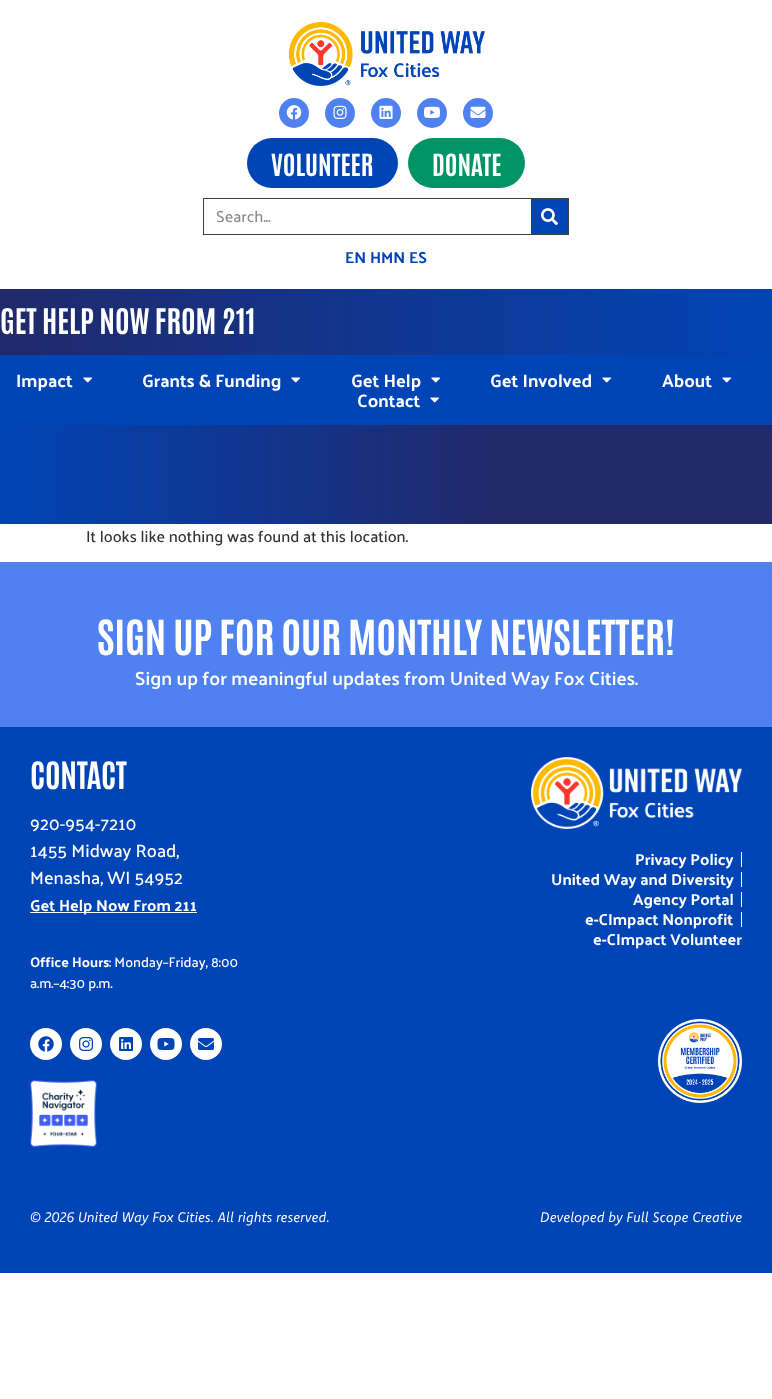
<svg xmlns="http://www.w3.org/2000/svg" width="772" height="1399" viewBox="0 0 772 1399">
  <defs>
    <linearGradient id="g1" gradientUnits="userSpaceOnUse" x1="0" y1="322" x2="772" y2="322"><stop offset="0" stop-color="rgb(33,41,107)"/><stop offset="1" stop-color="rgb(0,68,181)"/></linearGradient>
    <linearGradient id="g2" gradientUnits="userSpaceOnUse" x1="0" y1="475" x2="772" y2="475"><stop offset="0" stop-color="rgb(0,68,181)"/><stop offset="0.63" stop-color="rgb(33,41,107)"/></linearGradient>
  </defs>
  <rect width="100%" height="100%" fill="rgb(255,255,255)"/>
  <image x="288" y="21" width="197" height="65" href="pic1.png"/>
  <circle cx="294" cy="113" r="15" fill="rgb(79,130,240)"/>
  <image x="286" y="105" width="16" height="15" href="pic2.png"/>
  <circle cx="340" cy="113" r="15" fill="rgb(79,130,240)"/>
  <image x="333" y="105" width="14" height="14" href="pic3.png"/>
  <circle cx="386" cy="113" r="15" fill="rgb(79,130,240)"/>
  <image x="379" y="105" width="14" height="14" href="pic4.png"/>
  <circle cx="432" cy="113" r="15" fill="rgb(79,130,240)"/>
  <image x="424" y="106" width="16" height="12" href="pic5.png"/>
  <circle cx="478" cy="113" r="15" fill="rgb(79,130,240)"/>
  <image x="470" y="106" width="16" height="12" href="pic6.png"/>
  <rect x="247" y="138" width="151" height="50" rx="25" fill="rgb(0,68,181)"/>
  <text x="271" y="176" font-family="Antonio" font-size="26" font-weight="bold" fill="rgb(255,255,255)">VOLUNTEER</text>
  <rect x="408" y="138" width="117" height="50" rx="25" fill="rgb(0,148,100)"/>
  <text x="432" y="176" font-family="Antonio" font-size="26" font-weight="bold" fill="rgb(255,255,255)">DONATE</text>
  <rect x="203.5" y="198.5" width="365" height="36" fill="none" stroke="rgb(64,64,65)"/>
  <text x="216" y="222" font-family="Palanquin" font-size="16" font-weight="500" fill="rgb(140,140,141)">Search...</text>
  <rect x="531" y="199" width="37" height="35" fill="rgb(0,68,181)"/>
  <image x="541" y="208" width="17" height="18" href="pic7.png"/>
  <text x="345" y="263" font-family="Palanquin" font-size="16" font-weight="bold" fill="rgb(0,68,181)">EN HMN ES</text>
  <rect x="0" y="355" width="772" height="70" fill="rgb(0,68,181)"/>
  <rect x="0" y="289" width="772" height="66" fill="url(#g1)"/>
  <text x="0" y="334" font-family="Antonio" font-size="30" font-weight="bold" fill="rgb(255,255,255)">GET HELP NOW FROM 211</text>
  <text x="16" y="387" font-family="Palanquin" font-size="18" font-weight="bold" fill="rgb(255,255,255)">Impact</text>
  <image x="83" y="377" width="9" height="6" href="pic8.png"/>
  <text x="142" y="387" font-family="Palanquin" font-size="18" font-weight="bold" fill="rgb(255,255,255)">Grants &amp; Funding</text>
  <image x="291" y="377" width="9" height="6" href="pic8.png"/>
  <text x="351" y="387" font-family="Palanquin" font-size="18" font-weight="bold" fill="rgb(255,255,255)">Get Help</text>
  <image x="431" y="377" width="9" height="6" href="pic8.png"/>
  <text x="490" y="387" font-family="Palanquin" font-size="18" font-weight="bold" fill="rgb(255,255,255)">Get Involved</text>
  <image x="602" y="377" width="9" height="6" href="pic8.png"/>
  <text x="662" y="387" font-family="Palanquin" font-size="18" font-weight="bold" fill="rgb(255,255,255)">About</text>
  <image x="722" y="377" width="9" height="6" href="pic8.png"/>
  <text x="357" y="407" font-family="Palanquin" font-size="18" font-weight="bold" fill="rgb(255,255,255)">Contact</text>
  <image x="430" y="397" width="9" height="6" href="pic8.png"/>
  <rect x="0" y="425" width="772" height="99" fill="url(#g2)"/>
  <text x="86" y="542" font-family="Palanquin" font-size="16" font-weight="500" fill="rgb(51,51,51)">It looks like nothing was found at this location.</text>
  <rect x="0" y="562" width="772" height="165" fill="rgb(79,130,240)"/>
  <text x="97" y="655" font-family="Antonio" font-size="41" font-weight="bold" letter-spacing="-0.2" fill="rgb(255,255,255)">SIGN UP FOR OUR MONTHLY NEWSLETTER!</text>
  <text x="135" y="685" font-family="Palanquin" font-size="19" font-weight="600" fill="rgb(255,255,255)">Sign up for meaningful updates from United Way Fox Cities.</text>
  <rect x="0" y="727" width="772" height="546" fill="rgb(0,68,181)"/>
  <text x="30" y="789" font-family="Antonio" font-size="32" font-weight="bold" letter-spacing="-0.25" fill="rgb(255,255,255)">CONTACT</text>
  <g font-family="Palanquin" font-size="18" font-weight="500" fill="rgb(255,255,255)">
    <text>
      <tspan x="30" y="830">920-954-7210</tspan>
      <tspan x="30" y="857">1455 Midway Road,</tspan>
      <tspan x="30" y="884">Menasha, WI 54952</tspan>
    </text>
  </g>
  <rect x="30" y="912" width="167" height="1" fill="rgb(255,255,255)"/>
  <text x="30" y="911" font-family="Palanquin" font-size="16" font-weight="bold" fill="rgb(255,255,255)">Get Help Now From 211</text>
  <text x="30" y="967" font-family="Palanquin" font-size="14" font-weight="bold" fill="rgb(255,255,255)">Office Hours</text>
  <g font-family="Palanquin" font-size="14" font-weight="500" fill="rgb(255,255,255)">
    <text x="109" y="967">: Monday–Friday, 8:00</text>
    <text x="30" y="988">a.m.–4:30 p.m.</text>
  </g>
  <circle cx="46" cy="1044" r="16" fill="rgb(255,255,255)"/>
  <image x="38" y="1036" width="16" height="16" href="pic9.png"/>
  <circle cx="86" cy="1044" r="16" fill="rgb(255,255,255)"/>
  <image x="79" y="1037" width="14" height="14" href="pic10.png"/>
  <circle cx="126" cy="1044" r="16" fill="rgb(255,255,255)"/>
  <image x="119" y="1037" width="14" height="14" href="pic11.png"/>
  <circle cx="166" cy="1044" r="16" fill="rgb(255,255,255)"/>
  <image x="157" y="1038" width="18" height="12" href="pic12.png"/>
  <circle cx="206" cy="1044" r="16" fill="rgb(255,255,255)"/>
  <image x="198" y="1038" width="16" height="12" href="pic13.png"/>
  <image x="30" y="1080" width="67" height="67" href="pic14.png"/>
  <image x="531" y="757" width="211" height="72" href="pic15.png"/>
  <text x="635" y="865" font-family="Palanquin" font-size="16" font-weight="bold" fill="rgb(255,255,255)">Privacy Policy</text>
  <rect x="741" y="852" width="1" height="15" fill="rgb(255,255,255)"/>
  <text x="551" y="885" font-family="Palanquin" font-size="16" font-weight="bold" fill="rgb(255,255,255)">United Way and Diversity</text>
  <rect x="741" y="872" width="1" height="15" fill="rgb(255,255,255)"/>
  <text x="633" y="905" font-family="Palanquin" font-size="16" font-weight="bold" fill="rgb(255,255,255)">Agency Portal</text>
  <rect x="741" y="892" width="1" height="15" fill="rgb(255,255,255)"/>
  <text x="585" y="925" font-family="Palanquin" font-size="16" font-weight="bold" fill="rgb(255,255,255)">e-CImpact Nonprofit</text>
  <rect x="741" y="912" width="1" height="15" fill="rgb(255,255,255)"/>
  <text x="593" y="945" font-family="Palanquin" font-size="16" font-weight="bold" fill="rgb(255,255,255)">e-CImpact Volunteer</text>
  <image x="658" y="1019" width="84" height="84" href="pic16.png"/>
  <g font-family="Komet" font-size="14" font-style="italic" fill="rgb(255,255,255)">
    <text x="30" y="1222">© 2026 United Way Fox Cities. All rights reserved.</text>
    <text x="540" y="1222">Developed by Full Scope Creative</text>
  </g>
</svg>
